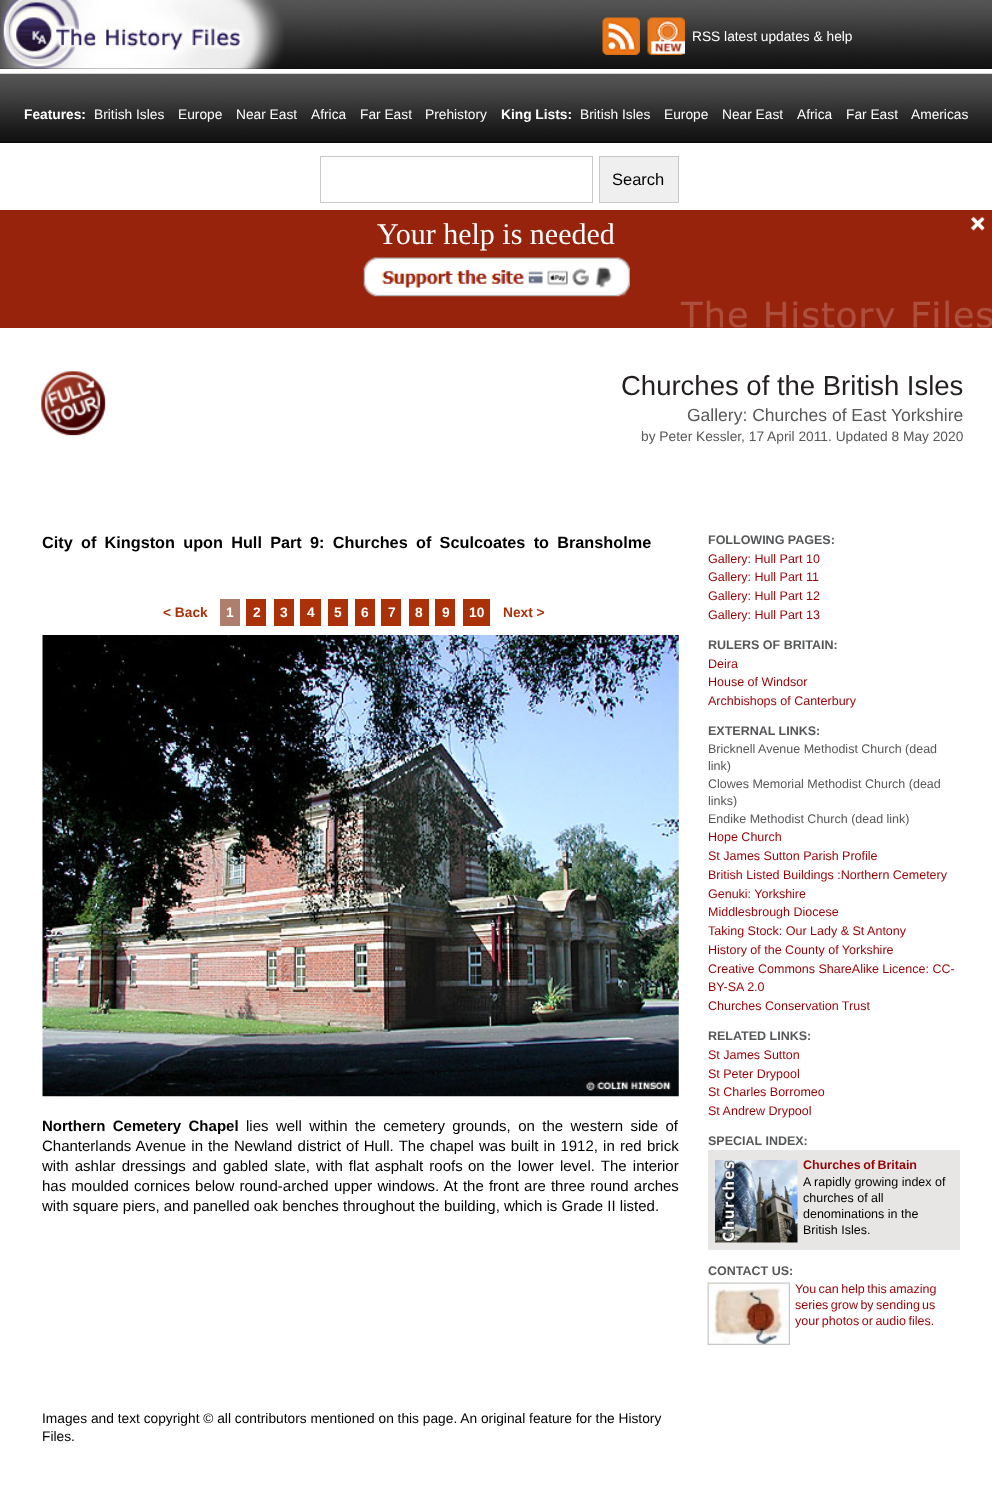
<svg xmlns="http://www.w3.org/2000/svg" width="992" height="1490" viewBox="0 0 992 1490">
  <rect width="100%" height="100%" fill="rgb(255,255,255)"/>
  <rect x="0" y="68" width="992" height="75" fill="rgb(0,0,0)"/>
  <image x="0" y="0" width="992" height="69" href="pic1.png"/>
  <image x="0" y="0" width="284" height="69" href="pic2.png"/>
  <image x="602" y="17" width="38" height="38" href="pic3.png"/>
  <image x="647" y="17" width="38" height="38" href="pic4.png"/>
  <text x="692" y="41" font-family="Liberation Sans" font-size="13.75" fill="rgb(255,255,255)">RSS latest updates &amp; help</text>
  <rect x="0" y="69" width="992" height="5" fill="rgb(255,255,255)"/>
  <image x="0" y="73" width="992" height="70" href="pic5.png"/>
  <text x="24" y="119" font-family="Liberation Sans" font-size="13.75" font-weight="bold" fill="rgb(255,255,255)">Features:</text>
  <g font-family="Liberation Sans" font-size="13.75" fill="rgb(255,255,255)">
    <text x="94" y="119">British Isles</text>
    <text x="178" y="119">Europe</text>
    <text x="236" y="119">Near East</text>
    <text x="311" y="119">Africa</text>
    <text x="360" y="119">Far East</text>
    <text x="425" y="119">Prehistory</text>
  </g>
  <text x="501" y="119" font-family="Liberation Sans" font-size="13.75" font-weight="bold" fill="rgb(255,255,255)">King Lists:</text>
  <g font-family="Liberation Sans" font-size="13.75" fill="rgb(255,255,255)">
    <text x="580" y="119">British Isles</text>
    <text x="664" y="119">Europe</text>
    <text x="722" y="119">Near East</text>
    <text x="797" y="119">Africa</text>
    <text x="846" y="119">Far East</text>
    <text x="911" y="119">Americas</text>
  </g>
  <rect x="320.5" y="156.5" width="272" height="46" fill="none" stroke="rgb(200,200,200)"/>
  <rect x="599.5" y="156.5" width="79" height="46" fill="rgb(239,239,239)" stroke="rgb(200,200,200)"/>
  <text x="612" y="185" font-family="Liberation Sans" font-size="16.5" fill="rgb(0,0,0)">Search</text>
  <rect x="0" y="210" width="992" height="118" fill="rgb(152,35,12)"/>
  <image x="680" y="300" width="312" height="28" href="pic6.png"/>
  <text x="377" y="244" font-family="Liberation Serif" font-size="30" fill="rgb(255,255,255)">Your help is needed</text>
  <image x="363" y="257" width="267" height="40" href="pic7.png"/>
  <image x="970" y="216" width="15" height="15" href="pic8.png"/>
  <image x="41" y="371" width="65" height="65" href="pic9.png"/>
  <text x="621" y="395" font-family="Liberation Sans" font-size="27.5" fill="rgb(35,31,32)">Churches of the British Isles</text>
  <text x="687" y="421" font-family="Liberation Sans" font-size="17.5" fill="rgb(86,87,89)">Gallery: Churches of East Yorkshire</text>
  <text x="641" y="441" font-family="Liberation Sans" font-size="13.75" fill="rgb(86,87,89)">by Peter Kessler, 17 April 2011. Updated 8 May 2020</text>
  <g font-family="Liberation Sans" font-size="16.25" font-weight="bold" fill="rgb(0,0,0)">
    <text x="42" y="548" word-spacing="3.75">City of Kingston upon Hull Part 9: Churches</text>
    <text x="416" y="548" word-spacing="3.75">of Sculcoates to Bransholme</text>
  </g>
  <text x="163" y="617" font-family="Liberation Sans" font-size="13.75" font-weight="bold" fill="rgb(171,49,8)">&lt; Back</text>
  <rect x="220" y="599" width="20" height="27" fill="rgb(175,126,109)"/>
  <text x="226" y="617" font-family="Liberation Sans" font-size="13.75" font-weight="bold" fill="rgb(255,255,255)">1</text>
  <rect x="246" y="599" width="20" height="27" fill="rgb(171,49,8)"/>
  <text x="253" y="617" font-family="Liberation Sans" font-size="13.75" font-weight="bold" fill="rgb(255,255,255)">2</text>
  <rect x="274" y="599" width="20" height="27" fill="rgb(171,49,8)"/>
  <text x="280" y="617" font-family="Liberation Sans" font-size="13.75" font-weight="bold" fill="rgb(255,255,255)">3</text>
  <rect x="300" y="599" width="21" height="27" fill="rgb(171,49,8)"/>
  <text x="307" y="617" font-family="Liberation Sans" font-size="13.75" font-weight="bold" fill="rgb(255,255,255)">4</text>
  <rect x="328" y="599" width="20" height="27" fill="rgb(171,49,8)"/>
  <text x="334" y="617" font-family="Liberation Sans" font-size="13.75" font-weight="bold" fill="rgb(255,255,255)">5</text>
  <rect x="355" y="599" width="20" height="27" fill="rgb(171,49,8)"/>
  <text x="361" y="617" font-family="Liberation Sans" font-size="13.75" font-weight="bold" fill="rgb(255,255,255)">6</text>
  <rect x="381" y="599" width="20" height="27" fill="rgb(171,49,8)"/>
  <text x="388" y="617" font-family="Liberation Sans" font-size="13.75" font-weight="bold" fill="rgb(255,255,255)">7</text>
  <rect x="409" y="599" width="20" height="27" fill="rgb(171,49,8)"/>
  <text x="415" y="617" font-family="Liberation Sans" font-size="13.75" font-weight="bold" fill="rgb(255,255,255)">8</text>
  <rect x="435" y="599" width="20" height="27" fill="rgb(171,49,8)"/>
  <text x="442" y="617" font-family="Liberation Sans" font-size="13.75" font-weight="bold" fill="rgb(255,255,255)">9</text>
  <rect x="463" y="599" width="27" height="27" fill="rgb(171,49,8)"/>
  <text x="469" y="617" font-family="Liberation Sans" font-size="13.75" font-weight="bold" fill="rgb(255,255,255)">10</text>
  <text x="503" y="617" font-family="Liberation Sans" font-size="13.75" font-weight="bold" fill="rgb(171,49,8)">Next &gt;</text>
  <image x="42" y="635" width="637" height="462" href="pic10.png"/>
  <text x="42" y="1131" word-spacing="3.25" font-family="Liberation Sans" font-size="15" font-weight="bold" fill="rgb(0,0,0)">Northern Cemetery Chapel</text>
  <g font-family="Liberation Sans" font-size="15" fill="rgb(0,0,0)">
    <text x="246" y="1131" word-spacing="3.25">lies well within</text>
    <text x="355" y="1131" word-spacing="3.25">the cemetery grounds, on the western side of</text>
    <text x="42" y="1151" word-spacing="1">Chanterlands Avenue in</text>
    <text x="208" y="1151" word-spacing="1">the Newland district of Hull. The chapel was built in 1912, in red</text>
    <text x="647" y="1151">brick</text>
    <text x="42" y="1171" word-spacing="1.9">with ashlar dressings and gabled slate, with flat asphalt roofs</text>
    <text x="468" y="1171" word-spacing="2">on the lower level. The interior</text>
    <text x="42" y="1191" word-spacing="1">has moulded cornices below round-arched</text>
    <text x="334" y="1191" word-spacing="1">upper windows. At the front are three round arches</text>
    <text x="42" y="1211">with square piers, and panelled oak benches throughout the building, which is Grade II listed.</text>
  </g>
  <text x="708" y="544" font-family="Liberation Sans" font-size="12.5" font-weight="bold" fill="rgb(86,87,89)">FOLLOWING PAGES:</text>
  <g font-family="Liberation Sans" font-size="12.5" fill="rgb(150,3,7)">
    <text>
      <tspan x="708" y="563">Gallery: Hull Part 10</tspan>
      <tspan x="708" y="581">Gallery: Hull Part 11</tspan>
      <tspan x="708" y="600">Gallery: Hull Part 12</tspan>
      <tspan x="708" y="619">Gallery: Hull Part 13</tspan>
    </text>
  </g>
  <text x="708" y="649" font-family="Liberation Sans" font-size="12.5" font-weight="bold" fill="rgb(86,87,89)">RULERS OF BRITAIN:</text>
  <g font-family="Liberation Sans" font-size="12.5" fill="rgb(150,3,7)">
    <text>
      <tspan x="708" y="668">Deira</tspan>
      <tspan x="708" y="686">House of Windsor</tspan>
      <tspan x="708" y="705">Archbishops of Canterbury</tspan>
    </text>
  </g>
  <text x="708" y="735" font-family="Liberation Sans" font-size="12.5" font-weight="bold" fill="rgb(86,87,89)">EXTERNAL LINKS:</text>
  <g font-family="Liberation Sans" font-size="12.5" fill="rgb(86,87,89)">
    <text>
      <tspan x="708" y="753">Bricknell Avenue Methodist Church (dead</tspan>
      <tspan x="708" y="770">link)</tspan>
      <tspan x="708" y="788">Clowes Memorial Methodist Church (dead</tspan>
      <tspan x="708" y="805">links)</tspan>
      <tspan x="708" y="823">Endike Methodist Church (dead link)</tspan>
    </text>
  </g>
  <g font-family="Liberation Sans" font-size="12.5" fill="rgb(150,3,7)">
    <text>
      <tspan x="708" y="841">Hope Church</tspan>
      <tspan x="708" y="860">St James Sutton Parish Profile</tspan>
      <tspan x="708" y="879">British Listed Buildings :Northern Cemetery</tspan>
      <tspan x="708" y="898">Genuki: Yorkshire</tspan>
      <tspan x="708" y="916">Middlesbrough Diocese</tspan>
      <tspan x="708" y="935">Taking Stock: Our Lady &amp; St Antony</tspan>
      <tspan x="708" y="954">History of the County of Yorkshire</tspan>
      <tspan x="708" y="973">Creative Commons ShareAlike Licence: CC-</tspan>
      <tspan x="708" y="991">BY-SA 2.0</tspan>
      <tspan x="708" y="1010">Churches Conservation Trust</tspan>
    </text>
  </g>
  <text x="708" y="1040" font-family="Liberation Sans" font-size="12.5" font-weight="bold" fill="rgb(86,87,89)">RELATED LINKS:</text>
  <g font-family="Liberation Sans" font-size="12.5" fill="rgb(150,3,7)">
    <text>
      <tspan x="708" y="1059">St James Sutton</tspan>
      <tspan x="708" y="1078">St Peter Drypool</tspan>
      <tspan x="708" y="1096">St Charles Borromeo</tspan>
      <tspan x="708" y="1115">St Andrew Drypool</tspan>
    </text>
  </g>
  <text x="708" y="1145" font-family="Liberation Sans" font-size="12.5" font-weight="bold" fill="rgb(86,87,89)">SPECIAL INDEX:</text>
  <rect x="708" y="1150" width="252" height="100" fill="rgb(231,230,229)"/>
  <image x="715" y="1160" width="83" height="83" href="pic11.png"/>
  <text x="803" y="1169" word-spacing="-1" font-family="Liberation Sans" font-size="12.5" font-weight="bold" fill="rgb(150,3,7)">Churches of Britain</text>
  <g font-family="Liberation Sans" font-size="12.5" fill="rgb(0,0,0)">
    <text>
      <tspan x="803" y="1186">A rapidly growing index of</tspan>
      <tspan x="803" y="1202">churches of all</tspan>
      <tspan x="803" y="1218">denominations in the</tspan>
      <tspan x="803" y="1234">British Isles.</tspan>
    </text>
  </g>
  <text x="708" y="1275" font-family="Liberation Sans" font-size="12.5" font-weight="bold" fill="rgb(86,87,89)">CONTACT US:</text>
  <image x="707" y="1282" width="83" height="63" href="pic12.png"/>
  <g font-family="Liberation Sans" font-size="12.5" fill="rgb(150,3,7)">
    <text>
      <tspan x="795" y="1293" word-spacing="-1">You can help this amazing</tspan>
      <tspan x="795" y="1309" word-spacing="-1">series grow by sending</tspan>
    </text>
    <text x="922" y="1309">us</text>
    <text x="795" y="1325" word-spacing="-1">your photos or audio files.</text>
  </g>
  <g font-family="Liberation Sans" font-size="13.75" fill="rgb(0,0,0)">
    <text>
      <tspan x="42" y="1423">Images and text copyright © all contributors mentioned on this page. An original feature for the History</tspan>
      <tspan x="42" y="1441">Files.</tspan>
    </text>
  </g>
</svg>
